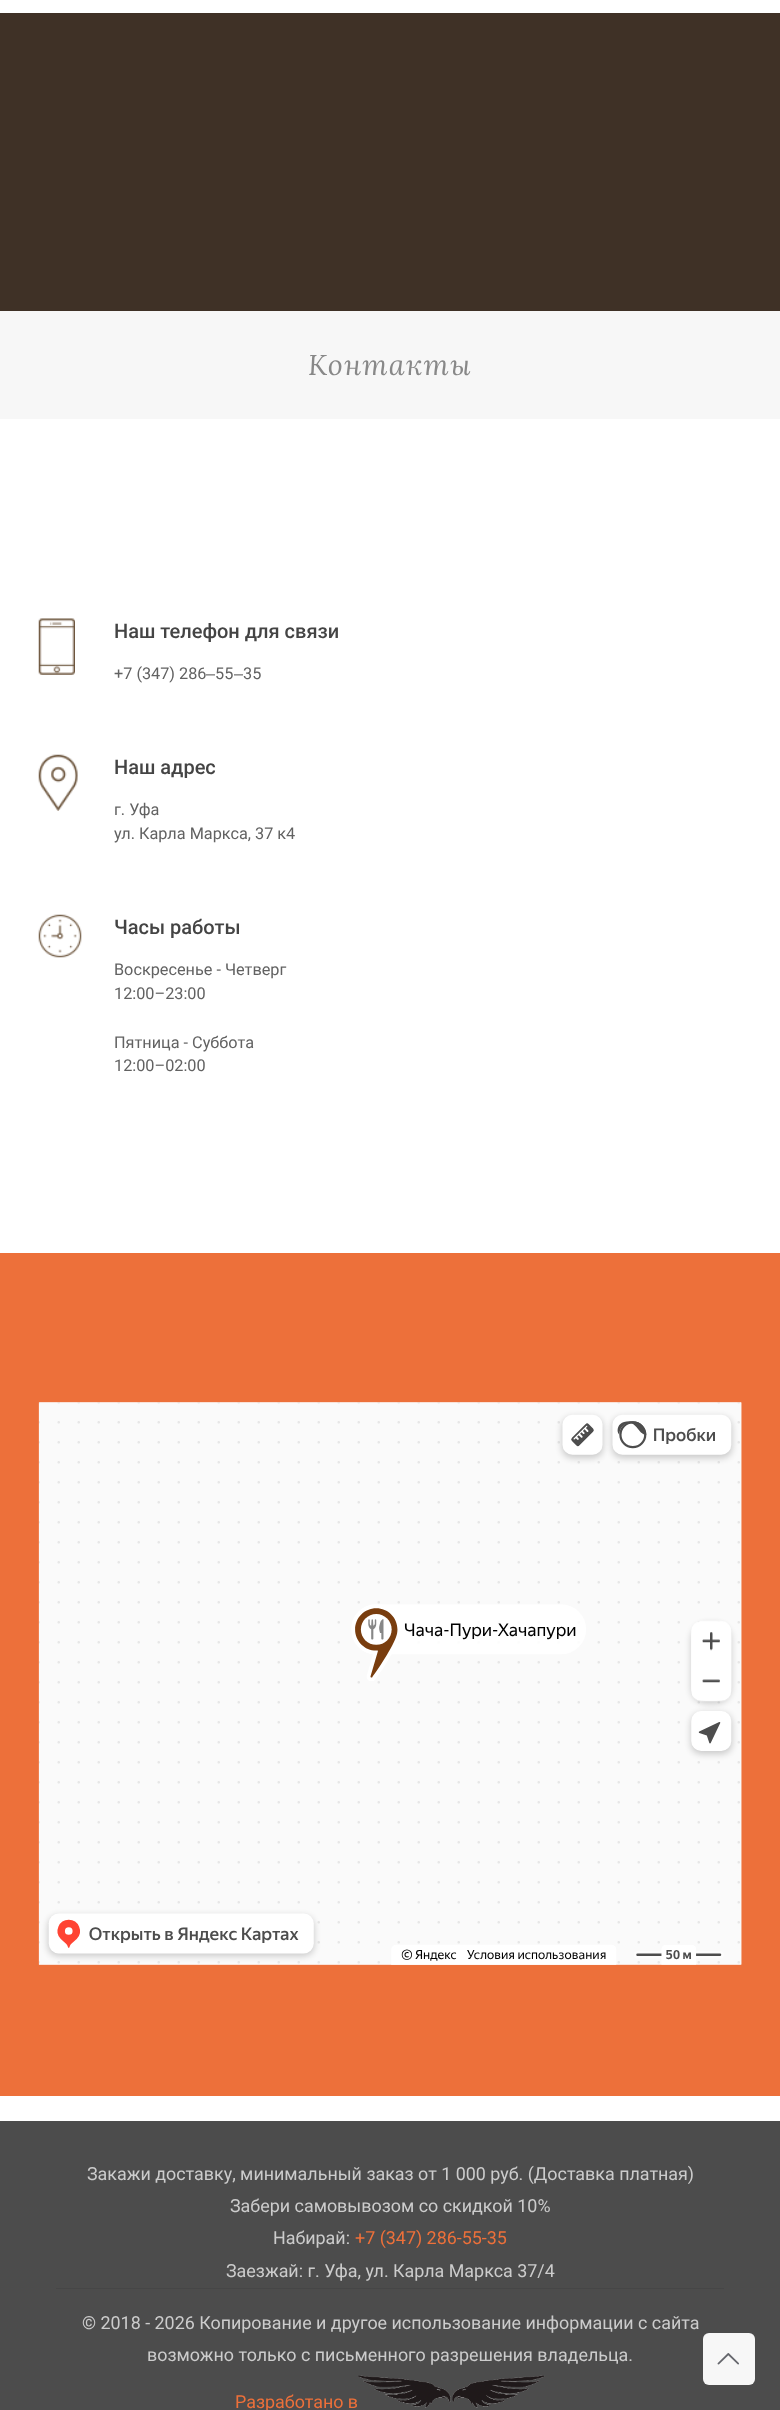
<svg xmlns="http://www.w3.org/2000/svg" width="780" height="2410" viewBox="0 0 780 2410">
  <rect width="100%" height="100%" fill="rgb(255,255,255)"/>
  <rect x="0" y="13" width="780" height="298" fill="rgb(63,49,38)"/>
  <rect x="0" y="311" width="780" height="108" fill="rgb(247,247,247)"/>
  <text x="308" y="375" font-family="Lora" font-size="28.75" font-style="italic" letter-spacing="1.25" fill="rgb(136,136,136)">Контакты</text>
  <image x="38" y="618" width="37" height="57" href="pic1.png"/>
  <text x="114" y="638" font-family="Roboto" font-size="20" font-weight="500" fill="rgb(68,68,68)">Наш телефон для связи</text>
  <text x="114" y="679" font-family="Roboto" font-size="16.25" fill="rgb(98,98,98)">+7 (347) 286</text>
  <text x="206" y="679" font-family="Liberation Sans" font-size="16.25" fill="rgb(98,98,98)">‒</text>
  <text x="215" y="679" font-family="Roboto" font-size="16.25" fill="rgb(98,98,98)">55</text>
  <text x="234" y="679" font-family="Liberation Sans" font-size="16.25" fill="rgb(98,98,98)">‒</text>
  <text x="243" y="679" font-family="Roboto" font-size="16.25" fill="rgb(98,98,98)">35</text>
  <image x="38" y="754" width="40" height="57" href="pic2.png"/>
  <text x="114" y="774" font-family="Roboto" font-size="20" font-weight="500" fill="rgb(68,68,68)">Наш адрес</text>
  <g font-family="Roboto" font-size="16.25" fill="rgb(98,98,98)">
    <text>
      <tspan x="114" y="815">г. Уфа</tspan>
      <tspan x="114" y="839">ул. Карла Маркса, 37 к4</tspan>
    </text>
  </g>
  <image x="38" y="914" width="44" height="44" href="pic3.png"/>
  <text x="114" y="934" font-family="Roboto" font-size="20" font-weight="500" fill="rgb(68,68,68)">Часы работы</text>
  <g font-family="Roboto" font-size="16.25" fill="rgb(98,98,98)">
    <text>
      <tspan x="114" y="975">Воскресенье - Четверг</tspan>
      <tspan x="114" y="999">12:00–23:00</tspan>
    </text>
    <text>
      <tspan x="114" y="1048">Пятница - Суббота</tspan>
      <tspan x="114" y="1071">12:00–02:00</tspan>
    </text>
  </g>
  <rect x="0" y="1253" width="780" height="843" fill="rgb(237,112,58)"/>
  <image x="38" y="1402" width="704" height="563" href="pic4.png"/>
  <rect x="0" y="2121" width="780" height="289" fill="rgb(76,76,76)"/>
  <g font-family="Roboto" font-size="17.9" fill="rgb(204,204,204)">
    <text x="87" y="2180">Закажи доставку, минимальный заказ от 1 000 руб. (Доставка платная)</text>
    <text x="230" y="2212">Забери самовывозом со скидкой 10%</text>
    <text x="273" y="2244">Набирай:</text>
  </g>
  <text x="355" y="2244" font-family="Roboto" font-size="17.9" fill="rgb(237,112,58)">+7 (347) 286-55-35</text>
  <text x="226" y="2277" font-family="Roboto" font-size="17.9" fill="rgb(204,204,204)">Заезжай: г. Уфа, ул. Карла Маркса 37/4</text>
  <rect x="56" y="2288" width="668" height="1" fill="rgb(70,70,70)"/>
  <g font-family="Roboto" font-size="17.9" fill="rgb(204,204,204)">
    <text x="82" y="2329">© 2018 - 2026 Копирование и другое использование информации с сайта</text>
    <text x="147" y="2361">возможно только с письменного разрешения владельца.</text>
  </g>
  <text x="235" y="2408" font-family="Roboto" font-size="17.9" fill="rgb(237,112,58)">Разработано в</text>
  <image x="358" y="2375" width="187" height="33" href="pic5.png"/>
  <rect x="703" y="2333" width="52" height="52" rx="6" fill="rgb(247,247,247)"/>
  <image x="717" y="2353" width="22" height="12" href="pic6.png"/>
</svg>
